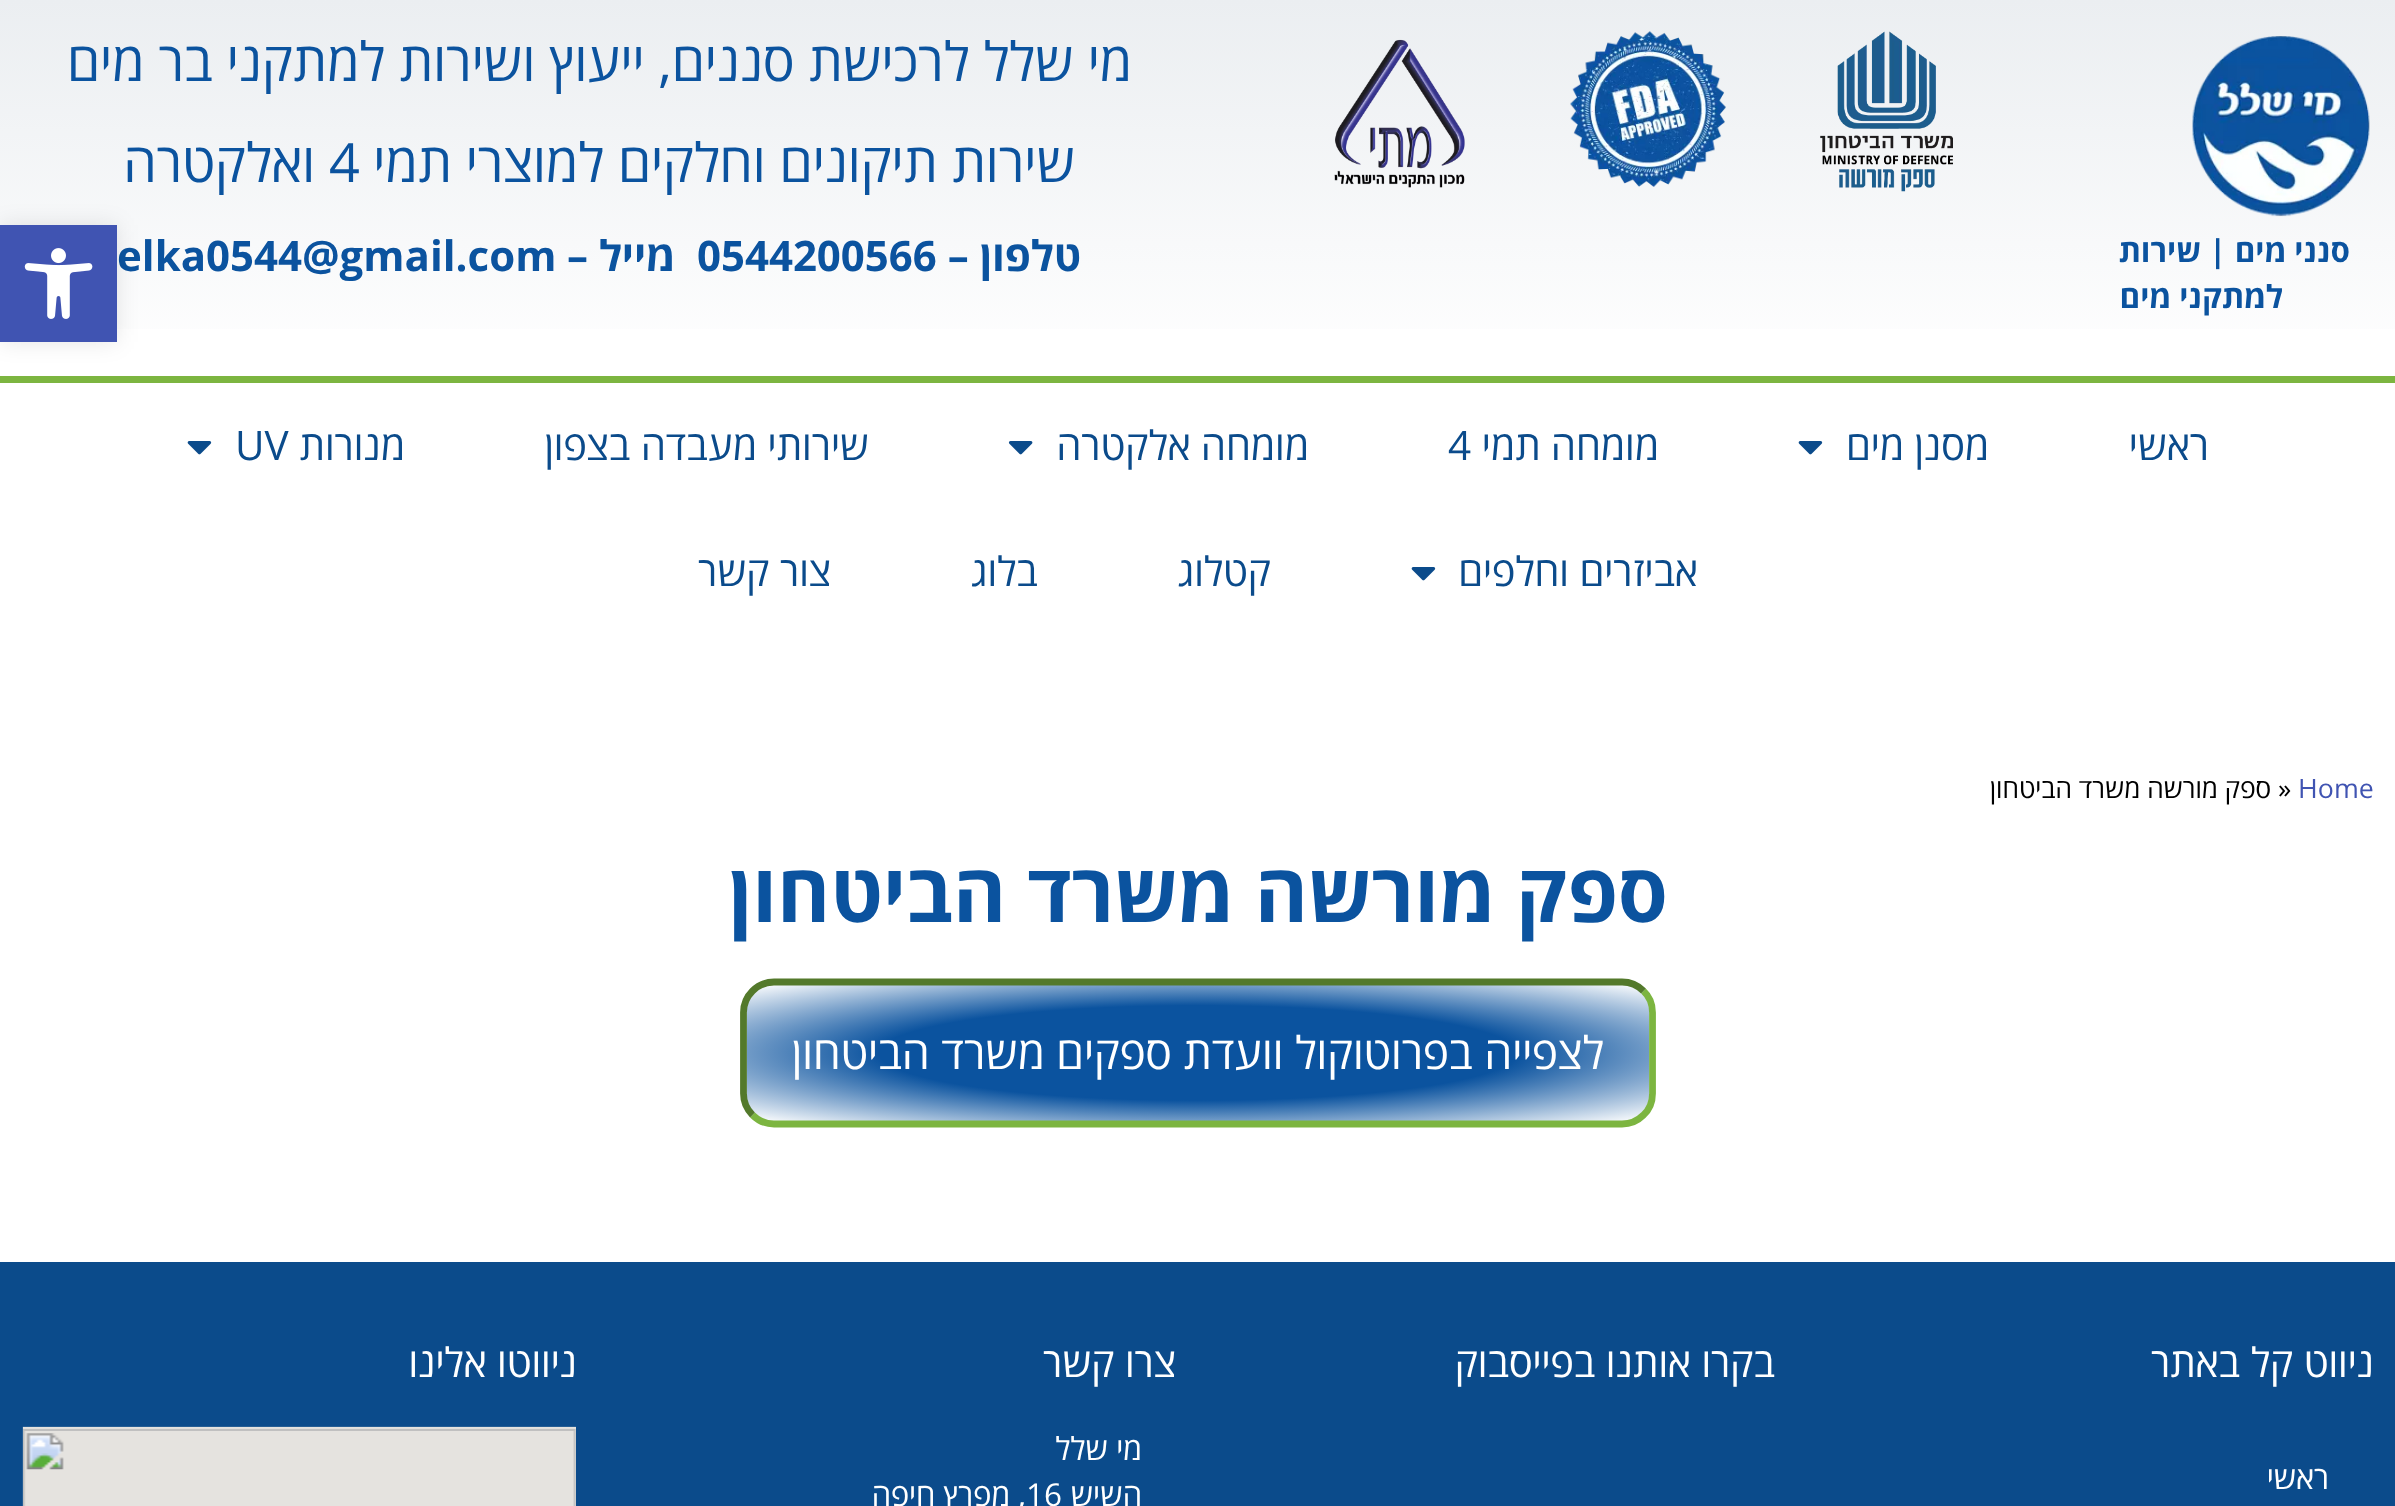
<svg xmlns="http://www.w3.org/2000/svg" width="2395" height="1506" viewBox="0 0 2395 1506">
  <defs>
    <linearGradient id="g1" gradientUnits="userSpaceOnUse" x1="1198" y1="0" x2="1198" y2="376"><stop offset="0" stop-color="rgb(235,238,241)"/><stop offset="1" stop-color="rgb(255,255,255)"/></linearGradient>
    <clipPath id="clip1"><rect x="740" y="979" width="916" height="148" rx="34"/></clipPath>
    <radialGradient id="g2" gradientUnits="userSpaceOnUse" cx="0" cy="0" r="1" gradientTransform="matrix(638 0 0 95 1198 918)"><stop offset="0.5" stop-color="rgb(11,83,159)"/><stop offset="1" stop-color="rgb(255,255,255)"/></radialGradient>
    <radialGradient id="g3" gradientUnits="userSpaceOnUse" cx="0" cy="0" r="1" gradientTransform="matrix(638 0 0 95 1198 1053)"><stop offset="0.5" stop-color="rgb(11,83,159)"/><stop offset="1" stop-color="rgb(255,255,255)"/></radialGradient>
  </defs>
  <rect width="100%" height="100%" fill="rgb(255,255,255)"/>
  <rect x="0" y="0" width="2395" height="329" fill="url(#g1)"/>
  <image x="1820" y="31" width="133" height="161" href="pic1.png"/>
  <image x="1570" y="31" width="156" height="156" href="pic2.png"/>
  <image x="1334" y="39" width="131" height="149" href="pic3.png"/>
  <image x="2192" y="36" width="178" height="181" href="pic4.png"/>
  <g font-family="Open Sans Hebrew" font-size="31.5" font-weight="bold" direction="rtl" fill="rgb(11,83,159)">
    <text x="2350" y="262">סנני מים | שירות</text>
    <text x="2283" y="308">למתקני מים</text>
  </g>
  <g font-family="Open Sans Hebrew" font-size="54" direction="rtl" fill="rgb(11,83,159)">
    <text x="1132" y="81">מי שלל לרכישת סננים, ייעוץ ושירות למתקני בר מים</text>
    <text x="1075" y="182">שירות תיקונים וחלקים למוצרי תמי</text>
  </g>
  <text x="329" y="182" font-family="Open Sans Hebrew" font-size="54" fill="rgb(11,83,159)">4</text>
  <text x="315" y="182" font-family="Open Sans Hebrew" font-size="54" direction="rtl" fill="rgb(11,83,159)">ואלקטרה</text>
  <text x="1081" y="271" font-family="Open Sans Hebrew" font-size="42" font-weight="bold" direction="rtl" fill="rgb(11,83,159)">טלפון –</text>
  <text x="697" y="271" font-family="Open Sans Hebrew" font-size="42" font-weight="bold" fill="rgb(11,83,159)">0544200566</text>
  <text x="675" y="271" font-family="Open Sans Hebrew" font-size="42" font-weight="bold" direction="rtl" fill="rgb(11,83,159)">מייל</text>
  <g font-family="Open Sans Hebrew" font-size="42" font-weight="bold" fill="rgb(11,83,159)">
    <text x="567" y="271">–</text>
    <text x="117" y="271">elka0544@gmail.com</text>
  </g>
  <rect x="0" y="376" width="2395" height="7" fill="rgb(124,181,64)"/>
  <g font-family="Open Sans Hebrew" font-size="40.5" direction="rtl" fill="rgb(11,75,139)">
    <text x="2209" y="460">ראשי</text>
    <text x="1989" y="460">מסנן מים</text>
  </g>
  <image x="1798" y="441" width="25" height="14" href="pic5.png"/>
  <text x="1659" y="460" font-family="Open Sans Hebrew" font-size="40.5" direction="rtl" fill="rgb(11,75,139)">מומחה תמי</text>
  <text x="1448" y="460" font-family="Open Sans Hebrew" font-size="40.5" fill="rgb(11,75,139)">4</text>
  <text x="1309" y="460" font-family="Open Sans Hebrew" font-size="40.5" direction="rtl" fill="rgb(11,75,139)">מומחה אלקטרה</text>
  <image x="1008" y="441" width="25" height="14" href="pic6.png"/>
  <g font-family="Open Sans Hebrew" font-size="40.5" direction="rtl" fill="rgb(11,75,139)">
    <text x="869" y="460">שירותי מעבדה בצפון</text>
    <text x="405" y="460">מנורות</text>
  </g>
  <text x="235" y="460" font-family="Open Sans Hebrew" font-size="40.5" fill="rgb(11,75,139)">UV</text>
  <image x="187" y="441" width="25" height="14" href="pic5.png"/>
  <text x="1698" y="586" font-family="Open Sans Hebrew" font-size="40.5" direction="rtl" fill="rgb(11,75,139)">אביזרים וחלפים</text>
  <image x="1411" y="567" width="25" height="14" href="pic5.png"/>
  <g font-family="Open Sans Hebrew" font-size="40.5" direction="rtl" fill="rgb(11,75,139)">
    <text x="1271" y="586">קטלוג</text>
    <text x="1038" y="586">בלוג</text>
    <text x="831" y="586">צור קשר</text>
  </g>
  <rect x="0" y="225" width="117" height="117" fill="rgba(0,0,0,0.1)" filter="blur(11px)"/>
  <rect x="0" y="225" width="117" height="117" fill="rgb(64,84,178)"/>
  <image x="24" y="248" width="69" height="71" href="pic7.png"/>
  <text x="2298" y="798" font-family="Open Sans Hebrew" font-size="26.75" fill="rgb(64,84,178)">Home</text>
  <text x="2278" y="798" font-family="Open Sans Hebrew" font-size="26.75" fill="rgb(0,0,0)">»</text>
  <text x="2271" y="798" font-family="Open Sans Hebrew" font-size="26.75" direction="rtl" fill="rgb(0,0,0)">ספק מורשה משרד הביטחון</text>
  <text x="1668" y="922" font-family="Open Sans Hebrew" font-size="81" font-weight="bold" direction="rtl" fill="rgb(11,83,159)">ספק מורשה משרד הביטחון</text>
  <g clip-path="url(#clip1)">
    <rect x="747" y="979" width="902" height="7" fill="url(#g2)"/>
    <rect x="747" y="986" width="902" height="135" fill="url(#g3)"/>
  </g>
  <path d="M1643.5 991C1649.5 996.5 1652.5 1004.5 1652.5 1012.5V1093.5C1652.5 1101.5 1649.5 1109.5 1643.5 1115C1638 1120.5 1630.5 1124 1622 1124H774C766 1124 758 1120.5 752.5 1115" fill="none" stroke="rgb(124,181,64)" stroke-width="6.8"/>
  <path d="M752.5 1115C747 1109.5 743.5 1101.5 743.5 1093.5V1012.5C743.5 1004.5 747 996.5 752.5 991C758 985.5 766 982 774 982H1622C1630.5 982 1638 985.5 1643.5 991" fill="none" stroke="rgb(83,121,43)" stroke-width="6.8"/>
  <text x="1604" y="1069" font-family="Open Sans Hebrew" font-size="45" direction="rtl" fill="rgb(255,255,255)">לצפייה בפרוטוקול וועדת ספקים משרד הביטחון</text>
  <rect x="0" y="1262" width="2395" height="244" fill="rgb(11,75,139)"/>
  <text x="2374" y="1377" font-family="Open Sans Hebrew" font-size="40.5" direction="rtl" fill="rgb(255,255,255)">ניווט קל באתר</text>
  <text x="2329" y="1489" font-family="Open Sans Hebrew" font-size="31.5" direction="rtl" fill="rgb(255,255,255)">ראשי</text>
  <g font-family="Open Sans Hebrew" font-size="40.5" direction="rtl" fill="rgb(255,255,255)">
    <text x="1775" y="1377">בקרו אותנו בפייסבוק</text>
    <text x="1176" y="1377">צרו קשר</text>
  </g>
  <g font-family="Open Sans Hebrew" font-size="31.5" direction="rtl" fill="rgb(255,255,255)">
    <text>
      <tspan x="1142" y="1460">מי שלל</tspan>
      <tspan x="1142" y="1506">השיש</tspan>
    </text>
  </g>
  <text x="1026" y="1506" font-family="Open Sans Hebrew" font-size="31.5" fill="rgb(255,255,255)">16</text>
  <text x="1026" y="1506" font-family="Open Sans Hebrew" font-size="31.5" direction="rtl" fill="rgb(255,255,255)">, מפרץ חיפה</text>
  <text x="577" y="1377" font-family="Open Sans Hebrew" font-size="40.5" direction="rtl" fill="rgb(255,255,255)">ניווטו אלינו</text>
  <image x="22" y="1426" width="554" height="80" href="pic8.png"/>
</svg>
